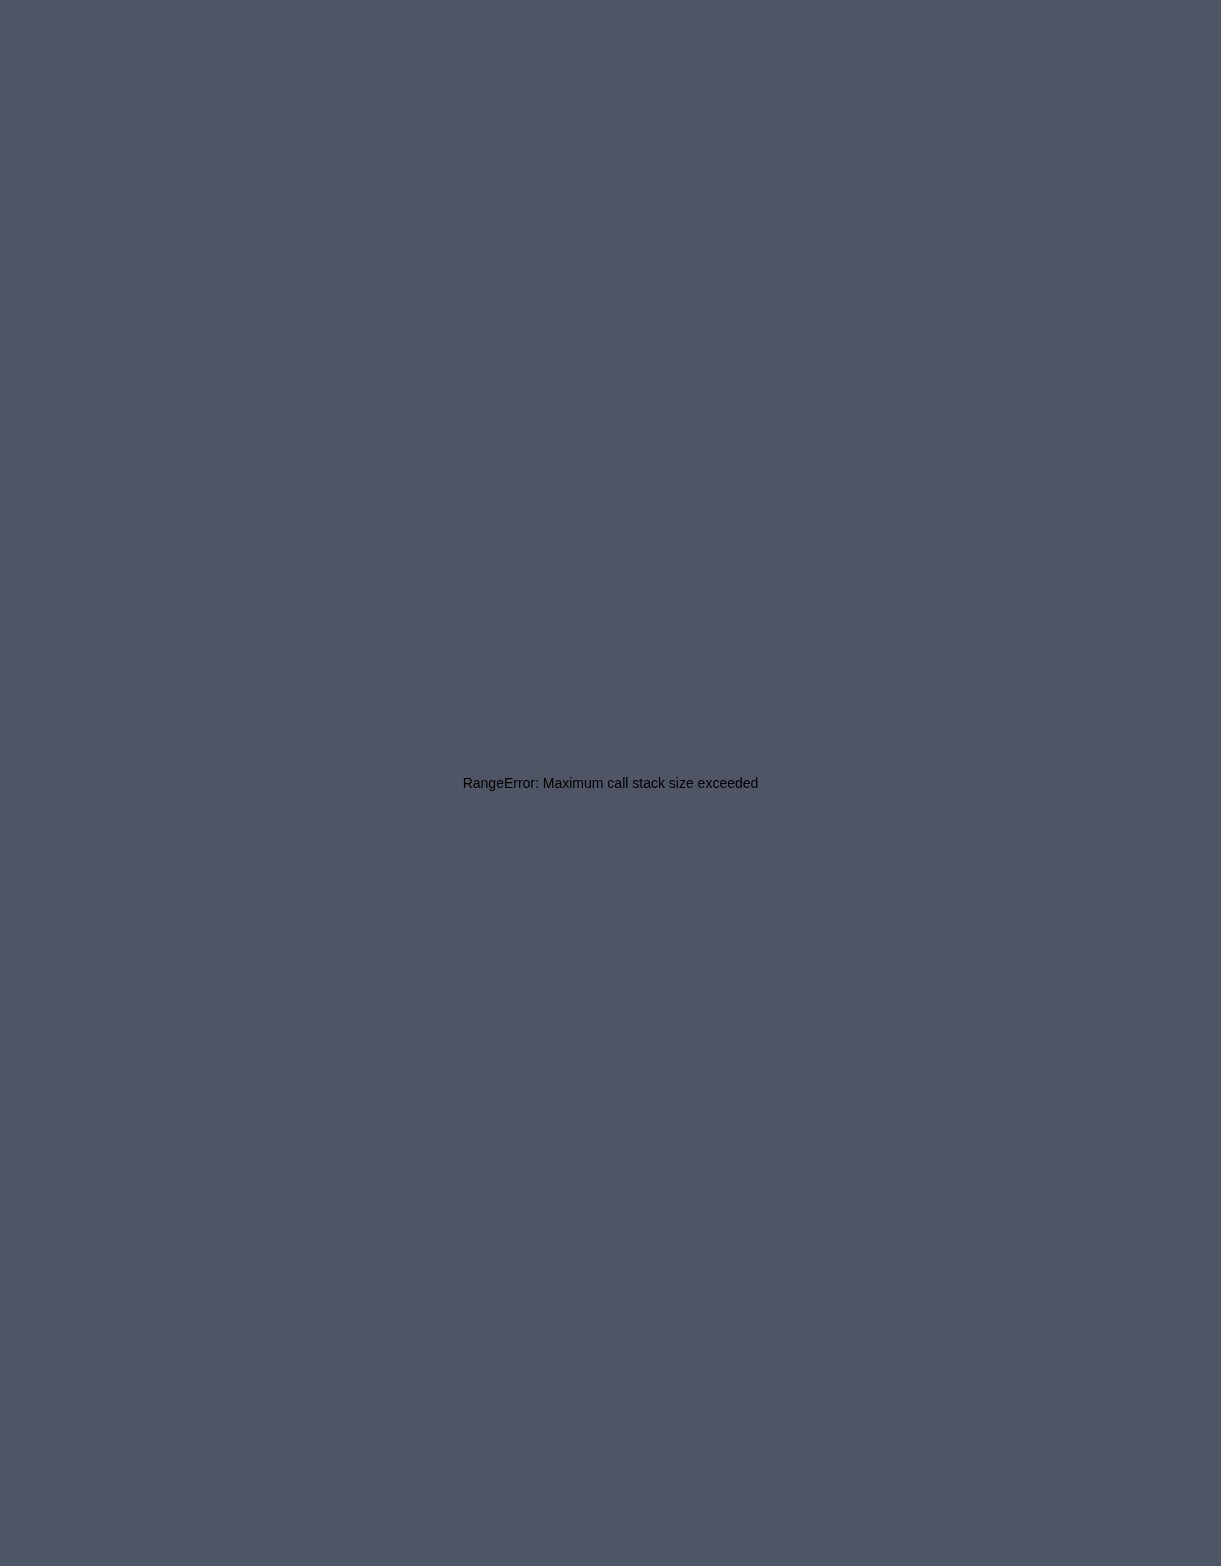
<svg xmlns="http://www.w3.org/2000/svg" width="1221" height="1566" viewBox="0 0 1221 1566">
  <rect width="100%" height="100%" fill="rgb(78,85,101)"/>
  <image x="463" y="777" width="295" height="14" href="pic1.png"/>
</svg>
